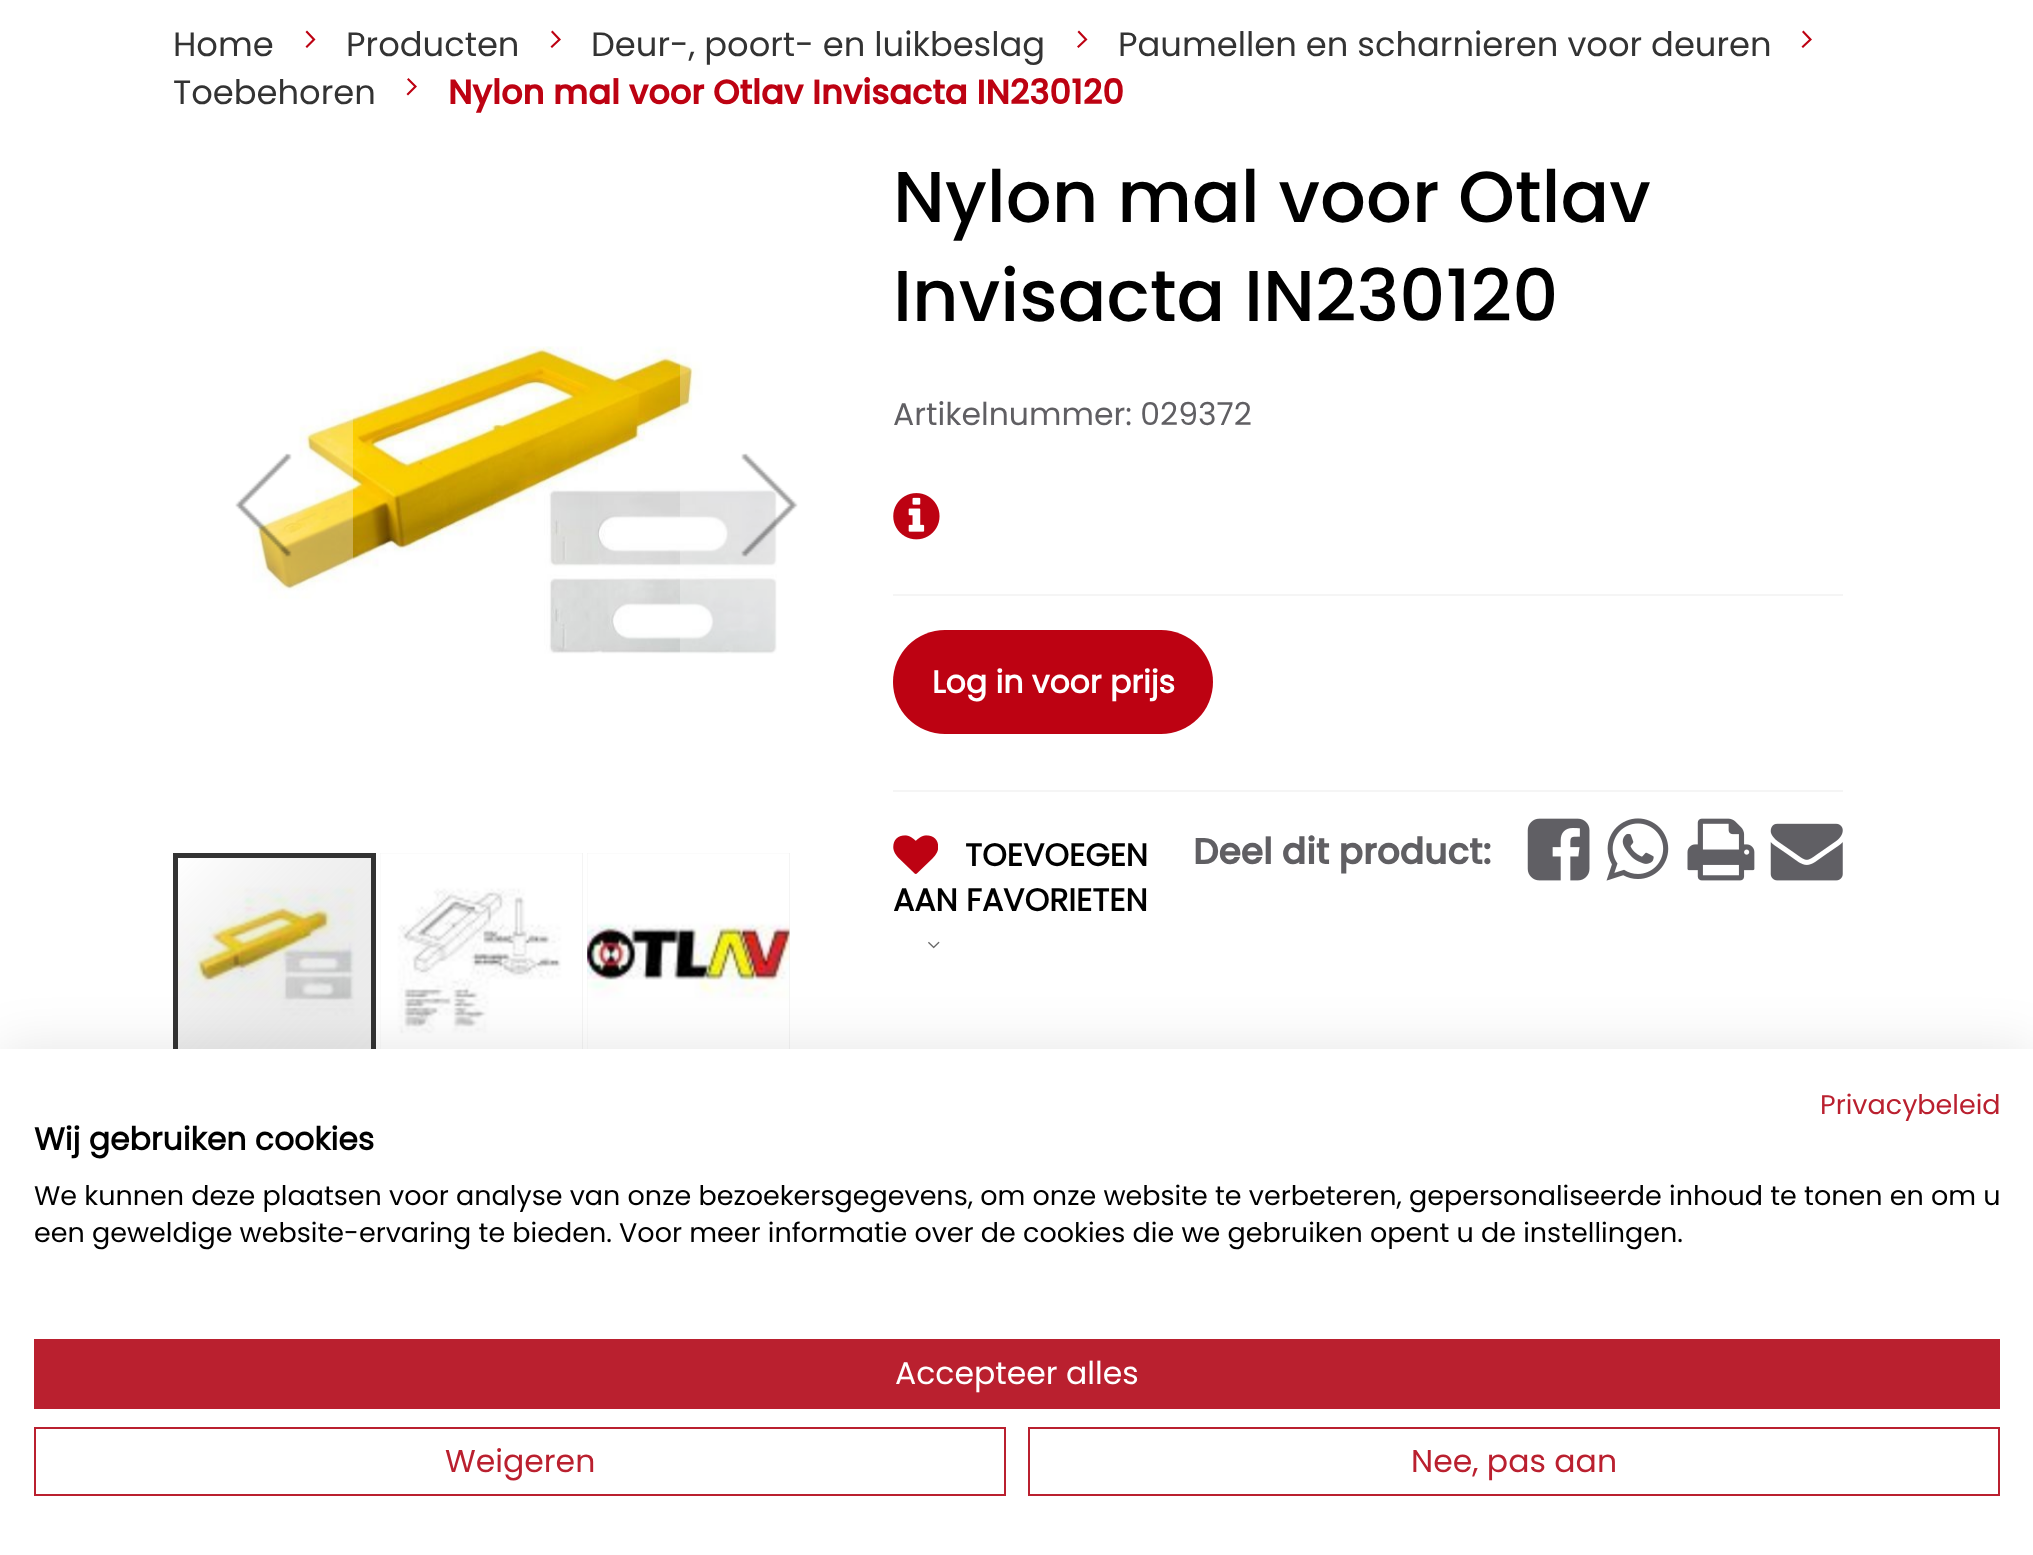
<svg xmlns="http://www.w3.org/2000/svg" width="2033" height="1555" viewBox="0 0 2033 1555">
  <rect width="100%" height="100%" fill="rgb(255,255,255)"/>
  <text x="173" y="56" font-family="Poppins" font-size="33.75" fill="rgb(51,51,51)">Home</text>
  <path d="M315.5 39.5L307 30.5L305.5 32L312.5 39.5L305.5 46.5L307 48Z" fill="rgb(189,2,18)"/>
  <text x="346" y="56" font-family="Poppins" font-size="33.75" fill="rgb(51,51,51)">Producten</text>
  <path d="M561 39.5L552.5 30.5L551 32L558 39.5L550.5 46.5L552 48Z" fill="rgb(189,2,18)"/>
  <text x="591" y="56" font-family="Poppins" font-size="33.75" fill="rgb(51,51,51)">Deur-, poort- en luikbeslag</text>
  <path d="M1087.5 39.5L1079 30.5L1077.5 32L1084.5 39.5L1077 46.5L1078.5 48Z" fill="rgb(189,2,18)"/>
  <text x="1118" y="56" font-family="Poppins" font-size="33.75" fill="rgb(51,51,51)">Paumellen en scharnieren voor deuren</text>
  <path d="M1812 39.5L1803.5 30.5L1802 32L1809 39.5L1801.5 46.5L1803 48Z" fill="rgb(189,2,18)"/>
  <text x="173" y="104" font-family="Poppins" font-size="33.75" fill="rgb(51,51,51)">Toebehoren</text>
  <path d="M417 86.5L408.5 78L407 79.5L414 86.5L406.5 94L408 95.5Z" fill="rgb(189,2,18)"/>
  <text x="448" y="104" font-family="'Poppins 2'" font-size="33.75" font-weight="bold" fill="rgb(189,2,18)">Nylon mal voor Otlav Invisacta IN230120</text>
  <image x="252" y="346" width="525" height="308" href="pic1.png"/>
  <rect x="252" y="410" width="101" height="187" fill="rgba(255,255,255,0.3)"/>
  <image x="235" y="453" width="57" height="104" href="pic2.png"/>
  <rect x="680" y="362" width="97" height="291" fill="rgba(255,255,255,0.3)"/>
  <image x="741" y="453" width="57" height="104" href="pic3.png"/>
  <image x="178" y="858" width="193" height="191" href="pic6.png"/>
  <rect x="175.5" y="855.5" width="198" height="197" fill="none" stroke="rgb(51,51,51)" stroke-width="5"/>
  <rect x="380" y="853" width="203" height="196" fill="rgb(235,235,235)"/>
  <image x="380" y="853" width="203" height="196" href="pic4.png"/>
  <rect x="587" y="853" width="203" height="196" fill="rgb(235,235,235)"/>
  <image x="587" y="853" width="203" height="196" href="pic5.png"/>
  <g font-family="Poppins" font-size="72" font-weight="500" fill="rgb(0,0,0)">
    <text>
      <tspan x="893" y="222">Nylon mal voor Otlav</tspan>
      <tspan x="893" y="321">Invisacta IN230120</tspan>
    </text>
  </g>
  <text x="893" y="425" font-family="Poppins" font-size="31.5" fill="rgb(96,95,99)">Artikelnummer: 029372</text>
  <rect x="893" y="594" width="950" height="2" fill="rgb(245,245,245)"/>
  <image x="893" y="493" width="47" height="47" href="pic7.png"/>
  <rect x="893" y="630" width="320" height="104" rx="52" fill="rgb(189,2,18)"/>
  <text x="932" y="693" font-family="Poppins" font-size="31.5" font-weight="bold" fill="rgb(255,255,255)">Log in voor prijs</text>
  <rect x="893" y="790" width="950" height="2" fill="rgb(245,245,245)"/>
  <image x="893" y="835" width="45" height="39" href="pic8.png"/>
  <g font-family="Poppins" font-size="31.5" font-weight="bold" fill="rgb(0,0,0)">
    <text x="965" y="866">TOEVOEGEN</text>
    <text x="893" y="911">AAN FAVORIETEN</text>
  </g>
  <image x="928" y="941" width="12" height="8" href="pic9.png"/>
  <text x="1193" y="864" font-family="'Poppins 2'" font-size="36" font-weight="bold" fill="rgb(96,95,99)">Deel dit product:</text>
  <image x="1527" y="818" width="63" height="63" href="pic10.png"/>
  <image x="1606" y="818" width="63" height="63" href="pic11.png"/>
  <image x="1687" y="818" width="68" height="63" href="pic12.png"/>
  <image x="1770" y="823" width="73" height="58" href="pic13.png"/>
  <rect x="0" y="1049" width="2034" height="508" fill="rgba(0,0,0,0.1)" filter="blur(27px)"/>
  <rect x="0" y="1049" width="2033" height="506" fill="rgb(255,255,255)"/>
  <text x="1820" y="1114" font-family="Poppins" font-size="27" fill="rgb(186,32,47)">Privacybeleid</text>
  <text x="34" y="1150" font-family="Poppins" font-size="31.5" font-weight="bold" fill="rgb(0,0,0)">Wij gebruiken cookies</text>
  <g font-family="Poppins" font-size="27" fill="rgb(0,0,0)">
    <text>
      <tspan x="34" y="1205">We kunnen deze plaatsen voor analyse van onze bezoekersgegevens, om onze website te verbeteren, gepersonaliseerde inhoud te tonen en om u</tspan>
      <tspan x="34" y="1242">een geweldige website-ervaring te bieden. Voor meer informatie over de cookies die we gebruiken opent u de instellingen.</tspan>
    </text>
  </g>
  <rect x="34" y="1339" width="1966" height="70" fill="rgb(186,32,47)"/>
  <text x="895" y="1384" font-family="Poppins" font-size="31.5" fill="rgb(255,255,255)">Accepteer alles</text>
  <rect x="35" y="1428" width="970" height="67" fill="none" stroke="rgb(186,32,47)" stroke-width="2"/>
  <text x="445" y="1472" font-family="Poppins" font-size="31.5" fill="rgb(186,32,47)">Weigeren</text>
  <rect x="1029" y="1428" width="970" height="67" fill="none" stroke="rgb(186,32,47)" stroke-width="2"/>
  <text x="1411" y="1472" font-family="Poppins" font-size="31.5" fill="rgb(186,32,47)">Nee, pas aan</text>
</svg>
